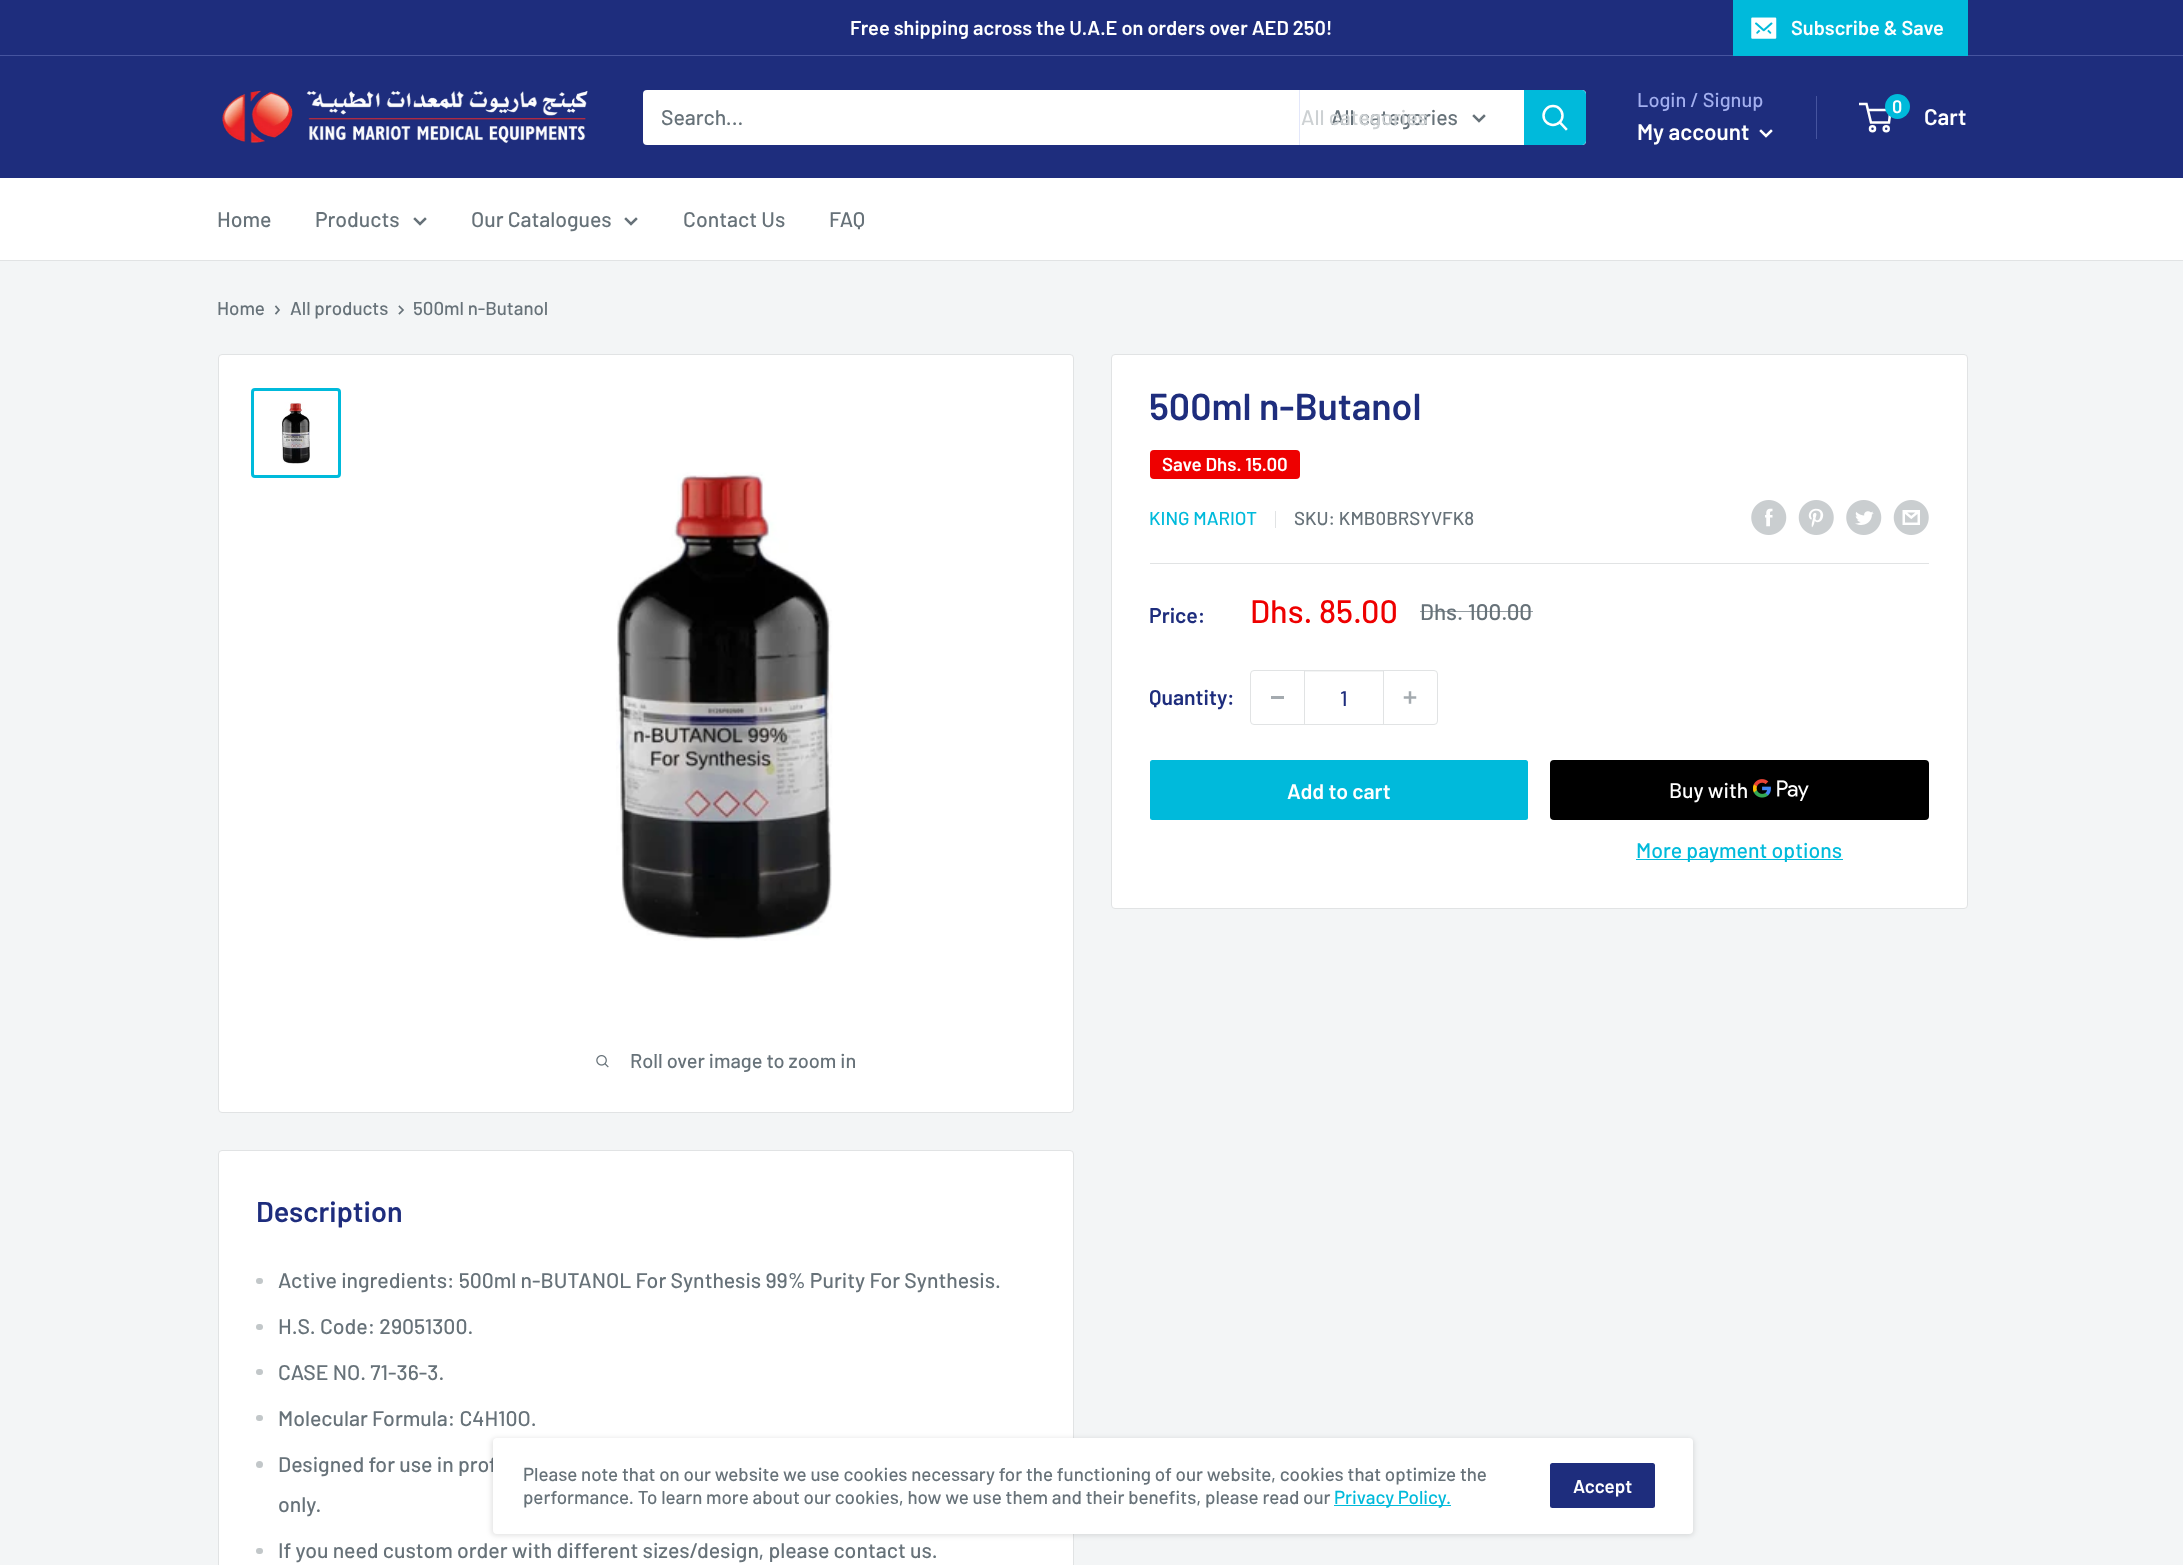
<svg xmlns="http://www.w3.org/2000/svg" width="2183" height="1565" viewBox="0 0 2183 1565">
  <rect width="100%" height="100%" fill="rgb(243,245,246)"/>
  <rect x="0" y="0" width="2183" height="55" fill="rgb(30,45,125)"/>
  <rect x="0" y="55" width="2183" height="1" fill="rgb(70,84,159)"/>
  <text x="850" y="35" font-family="Barlow" font-size="20" font-weight="600" fill="rgb(255,255,255)">Free shipping across the U.A.E on orders over AED 250!</text>
  <path d="M1733 55V56H1968V1V55Z" fill="rgb(0,186,219)"/>
  <rect x="1733" y="0" width="235" height="55" fill="rgb(0,186,219)"/>
  <image x="1751" y="17" width="26" height="22" href="pic1.png"/>
  <text x="1791" y="35" font-family="Barlow" font-size="20" font-weight="600" fill="rgb(255,255,255)">Subscribe &amp; Save</text>
  <rect x="0" y="56" width="2183" height="122" fill="rgb(30,45,125)"/>
  <image x="222" y="90" width="366" height="54" href="pic2.png"/>
  <rect x="643" y="90" width="943" height="55" rx="4" fill="rgb(255,255,255)"/>
  <text x="661" y="125" font-family="Barlow" font-size="21.25" font-weight="500" fill="rgb(103,114,121)">Search...</text>
  <rect x="1299" y="90" width="1" height="55" fill="rgb(227,231,250)"/>
  <text x="1331" y="125" font-family="Barlow" font-size="21.25" font-weight="500" fill="rgb(103,114,121)">All categories</text>
  <text x="1301" y="125" font-family="Barlow" font-size="21.25" font-weight="500" fill="rgb(205,209,211)">All categories</text>
  <path d="M1484 116L1479 121L1474 116" fill="none" stroke="rgb(103,114,121)" stroke-width="2.5" stroke-linecap="square"/>
  <path d="M1524 90H1582C1584 90 1586 92 1586 94V141C1586 143 1584 145 1582 145H1524Z" fill="rgb(0,186,219)"/>
  <path d="M1566 129L1560 122.5" fill="none" stroke="rgb(255,255,255)" stroke-width="2.5" stroke-linecap="square"/>
  <circle cx="1553" cy="115.5" r="9.5" fill="none" stroke="rgb(255,255,255)" stroke-width="2.5"/>
  <text x="1637" y="107" font-family="Barlow" font-size="20" font-weight="500" fill="rgb(163,175,239)">Login / Signup</text>
  <rect x="1816" y="96" width="1" height="43" fill="rgb(70,84,159)"/>
  <text x="1637" y="140" font-family="Barlow" font-size="22.5" font-weight="600" fill="rgb(255,255,255)">My account</text>
  <path d="M1771 131L1766 136L1761 131" fill="none" stroke="rgb(255,255,255)" stroke-width="2.5" stroke-linecap="square"/>
  <circle cx="1872.5" cy="128.8" r="2.5" fill="none" stroke="rgb(255,255,255)" stroke-width="2.5"/>
  <circle cx="1886.2" cy="128.8" r="2.5" fill="none" stroke="rgb(255,255,255)" stroke-width="2.5"/>
  <path d="M1868 110H1890.5L1889 122.5H1871L1866.5 104H1859" fill="none" stroke="rgb(255,255,255)" stroke-width="2.5"/>
  <circle cx="1897.5" cy="106.5" r="12.5" fill="rgb(0,186,219)"/>
  <text x="1892" y="113" font-family="Barlow" font-size="18" font-weight="600" fill="rgb(255,255,255)">0</text>
  <text x="1924" y="125" font-family="Barlow" font-size="22.5" font-weight="600" fill="rgb(255,255,255)">Cart</text>
  <rect x="0" y="178" width="2183" height="82" fill="rgb(255,255,255)"/>
  <rect x="0" y="260" width="2183" height="1" fill="rgb(225,227,228)"/>
  <g font-family="Barlow" font-size="21.25" font-weight="500" fill="rgb(103,114,121)">
    <text x="217" y="227">Home</text>
    <text x="315" y="227">Products</text>
  </g>
  <path d="M425 219L420 224L415 219" fill="none" stroke="rgb(103,114,121)" stroke-width="2.5" stroke-linecap="square"/>
  <text x="471" y="227" font-family="Barlow" font-size="21.25" font-weight="500" fill="rgb(103,114,121)">Our Catalogues</text>
  <path d="M636 219L631 224L626 219" fill="none" stroke="rgb(103,114,121)" stroke-width="2.5" stroke-linecap="square"/>
  <g font-family="Barlow" font-size="21.25" font-weight="500" fill="rgb(103,114,121)">
    <text x="683" y="227">Contact Us</text>
    <text x="829" y="227">FAQ</text>
  </g>
  <text x="217" y="315" font-family="Barlow" font-size="18.75" font-weight="500" fill="rgb(103,114,121)">Home</text>
  <path d="M276 306.5L279 310L276 313.5" fill="none" stroke="rgb(103,114,121)" stroke-width="1.7" stroke-linecap="square"/>
  <text x="290" y="315" font-family="Barlow" font-size="18.75" font-weight="500" fill="rgb(103,114,121)">All products</text>
  <path d="M399.5 306.5L403 310L399.5 313.5" fill="none" stroke="rgb(103,114,121)" stroke-width="1.7" stroke-linecap="square"/>
  <text x="413" y="315" font-family="Barlow" font-size="18.75" font-weight="500" fill="rgb(103,114,121)">500ml n-Butanol</text>
  <rect x="1111.5" y="354.5" width="856" height="554" rx="3.5" fill="rgb(255,255,255)" stroke="rgb(225,227,228)"/>
  <text x="1149" y="420" font-family="Barlow" font-size="37.5" font-weight="600" fill="rgb(30,45,125)">500ml n-Butanol</text>
  <rect x="1150" y="450" width="150" height="29" rx="4" fill="rgb(238,0,0)"/>
  <text x="1162" y="471" font-family="Barlow" font-size="18.75" font-weight="600" fill="rgb(255,255,255)">Save Dhs. 15.00</text>
  <text x="1149" y="525" font-family="Barlow" font-size="18.75" font-weight="500" fill="rgb(0,186,219)">KING MARIOT</text>
  <rect x="1275" y="511" width="1" height="17" fill="rgb(225,227,228)"/>
  <text x="1294" y="525" font-family="Barlow" font-size="18.75" font-weight="500" fill="rgb(103,114,121)">SKU: KMB0BRSYVFK8</text>
  <image x="1751" y="500" width="36" height="35" href="pic3.png"/>
  <image x="1798" y="500" width="36" height="35" href="pic4.png"/>
  <image x="1846" y="500" width="36" height="35" href="pic5.png"/>
  <image x="1893" y="500" width="36" height="35" href="pic6.png"/>
  <rect x="1150" y="563" width="779" height="1" fill="rgb(225,227,228)"/>
  <text x="1149" y="623" font-family="Barlow" font-size="21.25" font-weight="600" fill="rgb(30,45,125)">Price:</text>
  <text x="1250" y="623" font-family="Barlow" font-size="32.5" font-weight="500" fill="rgb(238,0,0)">Dhs. 85.00</text>
  <text x="1420" y="620" font-family="Barlow" font-size="22.5" font-weight="500" fill="rgb(103,114,121)">Dhs. 100.00</text>
  <rect x="1420" y="611" width="113" height="1" fill="rgba(103,114,121,0.7)"/>
  <text x="1149" y="705" font-family="Barlow" font-size="21.25" font-weight="600" fill="rgb(30,45,125)">Quantity:</text>
  <rect x="1250.5" y="670.5" width="187" height="54" rx="3.5" fill="none" stroke="rgb(225,227,228)"/>
  <rect x="1271" y="696" width="13" height="3" fill="rgb(164,170,175)"/>
  <rect x="1305" y="671" width="78" height="1" fill="rgb(243,244,244)"/>
  <rect x="1383" y="671" width="1" height="53" fill="rgb(225,227,228)"/>
  <rect x="1304" y="671" width="1" height="53" fill="rgb(225,227,228)"/>
  <text x="1340" y="706" font-family="Barlow" font-size="21.25" font-weight="500" fill="rgb(30,45,125)">1</text>
  <image x="1403" y="691" width="14" height="13" href="pic7.png"/>
  <rect x="1150" y="760" width="378" height="60" rx="2.5" fill="rgb(0,186,219)"/>
  <text x="1287" y="799" font-family="Barlow" font-size="21.25" font-weight="600" fill="rgb(255,255,255)">Add to cart</text>
  <rect x="1550" y="760" width="379" height="60" rx="4" fill="rgb(0,0,0)"/>
  <text x="1669" y="798" font-family="Barlow" font-size="21.25" font-weight="500" fill="rgb(255,255,255)">Buy with</text>
  <image x="1753" y="779" width="56" height="22" href="pic8.png"/>
  <rect x="1636" y="859" width="207" height="1" fill="rgb(0,186,219)"/>
  <text x="1636" y="858" font-family="Barlow" font-size="21.25" font-weight="500" fill="rgb(0,186,219)">More payment options</text>
  <rect x="218.5" y="354.5" width="855" height="758" rx="3.5" fill="rgb(255,255,255)" stroke="rgb(225,227,228)"/>
  <rect x="252.5" y="389.5" width="87" height="87" rx="2.5" fill="none" stroke="rgb(0,186,219)" stroke-width="3"/>
  <image x="281" y="402" width="29" height="62" href="pic9.png"/>
  <image x="616" y="472" width="217" height="469" href="pic10.png"/>
  <image x="596" y="1055" width="13" height="13" href="pic11.png"/>
  <text x="630" y="1068" font-family="Barlow" font-size="20" font-weight="500" fill="rgb(103,114,121)">Roll over image to zoom in</text>
  <rect x="218.5" y="1150.5" width="855" height="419" rx="3.5" fill="rgb(255,255,255)" stroke="rgb(225,227,228)"/>
  <text x="256" y="1222" font-family="Barlow" font-size="28.75" font-weight="600" fill="rgb(30,45,125)">Description</text>
  <rect x="256" y="1278" width="7" height="6" rx="3" fill="rgb(194,199,201)"/>
  <text x="278" y="1288" font-family="Barlow" font-size="21.25" font-weight="500" fill="rgb(103,114,121)">Active ingredients: 500ml n-BUTANOL For Synthesis 99% Purity For Synthesis.</text>
  <rect x="256" y="1324" width="7" height="6" rx="3" fill="rgb(194,199,201)"/>
  <text x="278" y="1334" font-family="Barlow" font-size="21.25" font-weight="500" fill="rgb(103,114,121)">H.S. Code: 29051300.</text>
  <rect x="256" y="1369" width="7" height="6" rx="3" fill="rgb(194,199,201)"/>
  <text x="278" y="1380" font-family="Barlow" font-size="21.25" font-weight="500" fill="rgb(103,114,121)">CASE NO. 71-36-3.</text>
  <rect x="256" y="1415" width="7" height="6" rx="3" fill="rgb(194,199,201)"/>
  <text x="278" y="1426" font-family="Barlow" font-size="21.25" font-weight="500" fill="rgb(103,114,121)">Molecular Formula: C4H10O.</text>
  <circle cx="259.5" cy="1464.5" r="3.5" fill="rgb(194,199,201)"/>
  <g font-family="Barlow" font-size="21.25" font-weight="500" fill="rgb(103,114,121)">
    <text>
      <tspan x="278" y="1472">Designed for use in prof</tspan>
      <tspan x="278" y="1512">only.</tspan>
    </text>
  </g>
  <rect x="256" y="1548" width="7" height="6" rx="3" fill="rgb(194,199,201)"/>
  <text x="278" y="1558" font-family="Barlow" font-size="21.25" font-weight="500" fill="rgb(103,114,121)">If you need custom order with different sizes/design, please contact us.</text>
  <rect x="491" y="1438" width="1203" height="98" rx="5" fill="rgba(0,0,0,0.1)" filter="blur(2.5px)"/>
  <rect x="493" y="1438" width="1200" height="96" rx="4" fill="rgb(255,255,255)"/>
  <g font-family="Barlow" font-size="18.75" font-weight="500" fill="rgb(103,114,121)">
    <text>
      <tspan x="523" y="1481">Please note that on our website we use cookies necessary for the functioning of our website, cookies that optimize the</tspan>
      <tspan x="523" y="1504">performance. To learn more about our cookies, how we use them and their benefits, please read our</tspan>
    </text>
  </g>
  <rect x="1334" y="1505" width="117" height="1" fill="rgb(0,186,219)"/>
  <text x="1334" y="1504" font-family="Barlow" font-size="18.75" font-weight="500" fill="rgb(0,186,219)">Privacy Policy.</text>
  <rect x="1550" y="1463" width="105" height="45" rx="2.5" fill="rgb(30,45,125)"/>
  <text x="1573" y="1493" font-family="Barlow" font-size="18.75" font-weight="600" fill="rgb(255,255,255)">Accept</text>
</svg>
